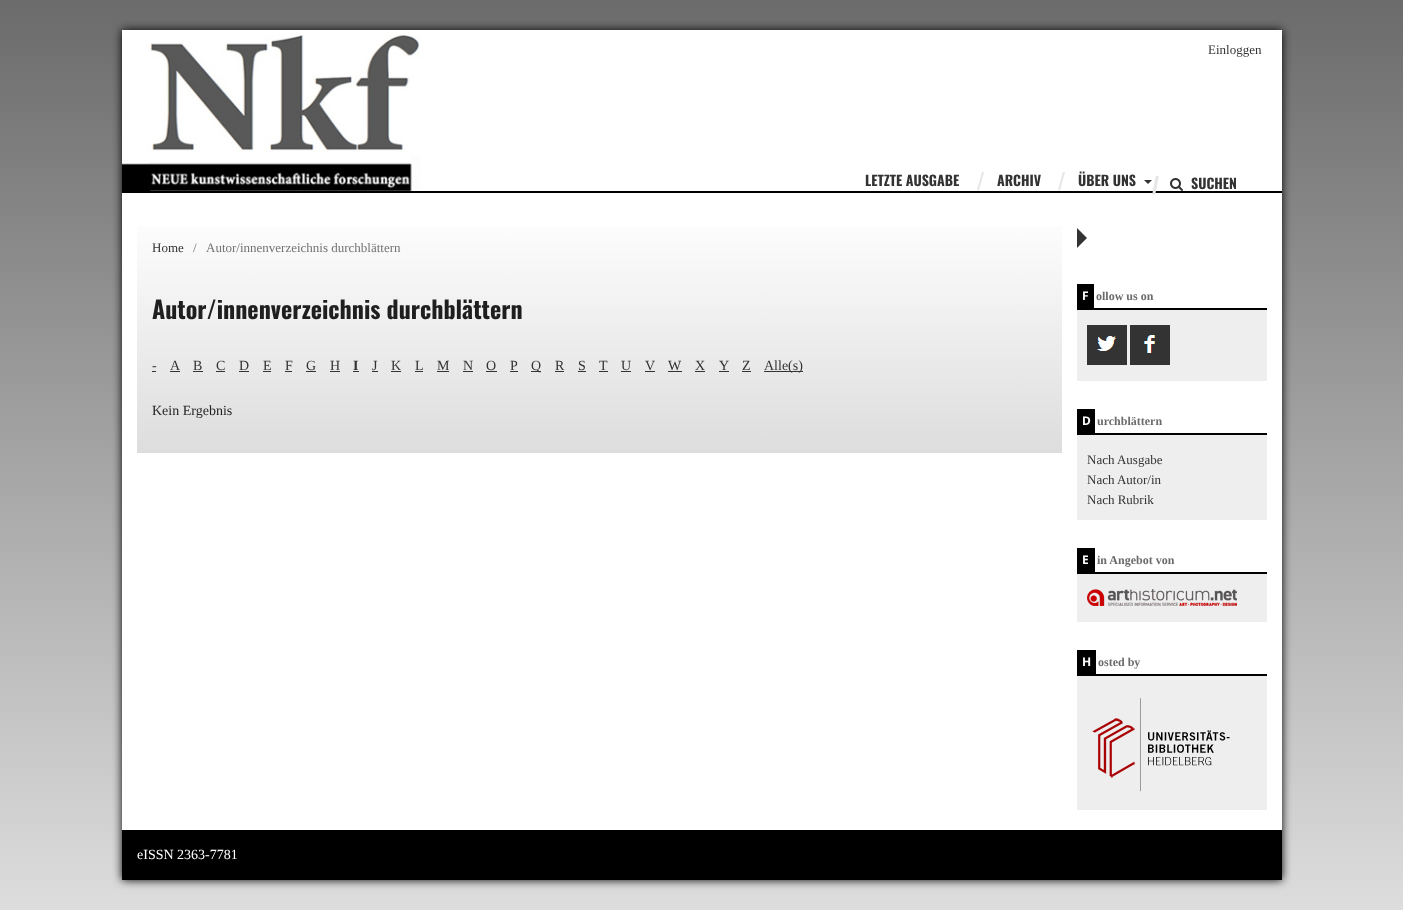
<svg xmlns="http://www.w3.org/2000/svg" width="1403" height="910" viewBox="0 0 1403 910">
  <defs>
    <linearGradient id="g1" gradientUnits="userSpaceOnUse" x1="702" y1="0" x2="702" y2="910"><stop offset="0" stop-color="rgb(107,107,107)"/><stop offset="1" stop-color="rgb(221,221,221)"/></linearGradient>
    <linearGradient id="g2" gradientUnits="userSpaceOnUse" x1="600" y1="453" x2="600" y2="208"><stop offset="0" stop-color="rgb(221,221,221)"/><stop offset="1" stop-color="rgb(255,255,255)"/></linearGradient>
  </defs>
  <rect width="100%" height="100%" fill="rgb(255,255,255)"/>
  <rect x="0" y="0" width="1403" height="910" fill="url(#g1)"/>
  <rect x="122" y="30" width="1160" height="850" fill="rgb(0,0,0)" filter="blur(5px)"/>
  <rect x="122" y="30" width="1160" height="800" fill="rgb(255,255,255)"/>
  <rect x="122" y="191" width="1160" height="2" fill="rgb(0,0,0)"/>
  <image x="122" y="35" width="299" height="156" href="pic1.png"/>
  <text x="1208" y="54" font-family="Liberation Serif" font-size="13" fill="rgb(51,51,51)">Einloggen</text>
  <text x="865" y="186" font-family="Oswald" font-size="14" font-weight="bold" fill="rgb(51,51,51)">LETZTE AUSGABE</text>
  <text x="977" y="190" font-family="Liberation Sans" font-size="25" fill="rgb(230,230,230)">/</text>
  <text x="997" y="186" font-family="Oswald" font-size="14" font-weight="bold" fill="rgb(51,51,51)">ARCHIV</text>
  <text x="1058" y="190" font-family="Liberation Sans" font-size="25" fill="rgb(230,230,230)">/</text>
  <text x="1078" y="186" font-family="Oswald" font-size="14" font-weight="bold" fill="rgb(51,51,51)">ÜBER UNS</text>
  <path d="M1144 180H1152L1148 184Z" fill="rgb(51,51,51)"/>
  <text x="1152" y="194" font-family="Liberation Sans" font-size="25" font-weight="bold" fill="rgb(230,230,230)">/</text>
  <image x="1170" y="178" width="13" height="13" href="pic2.png"/>
  <text x="1191" y="189" font-family="Oswald" font-size="14" font-weight="bold" fill="rgb(51,51,51)">SUCHEN</text>
  <path d="M1077 248V228L1087 238Z" fill="rgb(51,51,51)"/>
  <rect x="137" y="226" width="925" height="227" fill="url(#g2)"/>
  <text x="152" y="252" font-family="Liberation Serif" font-size="13" fill="rgb(51,51,51)">Home</text>
  <g font-family="Liberation Serif" font-size="13" fill="rgb(115,115,115)">
    <text x="193" y="252">/</text>
    <text x="206" y="252">Autor/innenverzeichnis durchblättern</text>
  </g>
  <text x="152" y="319" font-family="Oswald" font-size="24" font-weight="bold" fill="rgb(31,31,31)">Autor/innenverzeichnis durchblättern</text>
  <text x="152" y="370" font-family="Liberation Serif" font-size="14" fill="rgb(51,51,51)">-</text>
  <rect x="152" y="371" width="4" height="1" fill="rgb(51,51,51)"/>
  <text x="170" y="370" font-family="Liberation Serif" font-size="14" fill="rgb(51,51,51)">A</text>
  <rect x="170" y="371" width="10" height="1" fill="rgb(51,51,51)"/>
  <text x="193" y="370" font-family="Liberation Serif" font-size="14" fill="rgb(51,51,51)">B</text>
  <rect x="193" y="371" width="10" height="1" fill="rgb(51,51,51)"/>
  <text x="216" y="370" font-family="Liberation Serif" font-size="14" fill="rgb(51,51,51)">C</text>
  <rect x="216" y="371" width="9" height="1" fill="rgb(51,51,51)"/>
  <text x="239" y="370" font-family="Liberation Serif" font-size="14" fill="rgb(51,51,51)">D</text>
  <rect x="239" y="371" width="10" height="1" fill="rgb(51,51,51)"/>
  <text x="263" y="370" font-family="Liberation Serif" font-size="14" fill="rgb(51,51,51)">E</text>
  <rect x="263" y="371" width="8" height="1" fill="rgb(51,51,51)"/>
  <text x="285" y="370" font-family="Liberation Serif" font-size="14" fill="rgb(51,51,51)">F</text>
  <rect x="285" y="371" width="7" height="1" fill="rgb(51,51,51)"/>
  <text x="306" y="370" font-family="Liberation Serif" font-size="14" fill="rgb(51,51,51)">G</text>
  <rect x="306" y="371" width="10" height="1" fill="rgb(51,51,51)"/>
  <text x="330" y="370" font-family="Liberation Serif" font-size="14" fill="rgb(51,51,51)">H</text>
  <rect x="330" y="371" width="10" height="1" fill="rgb(51,51,51)"/>
  <text x="353" y="370" font-family="Liberation Serif" font-size="14" font-weight="bold" fill="rgb(51,51,51)">I</text>
  <rect x="353" y="371" width="6" height="1" fill="rgb(51,51,51)"/>
  <text x="372" y="370" font-family="Liberation Serif" font-size="14" fill="rgb(51,51,51)">J</text>
  <rect x="372" y="371" width="6" height="1" fill="rgb(51,51,51)"/>
  <text x="391" y="370" font-family="Liberation Serif" font-size="14" fill="rgb(51,51,51)">K</text>
  <rect x="391" y="371" width="10" height="1" fill="rgb(51,51,51)"/>
  <text x="415" y="370" font-family="Liberation Serif" font-size="14" fill="rgb(51,51,51)">L</text>
  <rect x="415" y="371" width="8" height="1" fill="rgb(51,51,51)"/>
  <text x="437" y="370" font-family="Liberation Serif" font-size="14" fill="rgb(51,51,51)">M</text>
  <rect x="437" y="371" width="12" height="1" fill="rgb(51,51,51)"/>
  <text x="463" y="370" font-family="Liberation Serif" font-size="14" fill="rgb(51,51,51)">N</text>
  <rect x="463" y="371" width="10" height="1" fill="rgb(51,51,51)"/>
  <text x="486" y="370" font-family="Liberation Serif" font-size="14" fill="rgb(51,51,51)">O</text>
  <rect x="486" y="371" width="11" height="1" fill="rgb(51,51,51)"/>
  <text x="510" y="370" font-family="Liberation Serif" font-size="14" fill="rgb(51,51,51)">P</text>
  <rect x="510" y="371" width="8" height="1" fill="rgb(51,51,51)"/>
  <rect x="531" y="371" width="10" height="1" fill="rgb(51,51,51)"/>
  <g font-family="Liberation Serif" font-size="14" fill="rgb(51,51,51)">
    <text x="531" y="370">Q</text>
    <text x="555" y="370">R</text>
  </g>
  <rect x="555" y="371" width="9" height="1" fill="rgb(51,51,51)"/>
  <text x="578" y="370" font-family="Liberation Serif" font-size="14" fill="rgb(51,51,51)">S</text>
  <rect x="578" y="371" width="8" height="1" fill="rgb(51,51,51)"/>
  <text x="599" y="370" font-family="Liberation Serif" font-size="14" fill="rgb(51,51,51)">T</text>
  <rect x="599" y="371" width="9" height="1" fill="rgb(51,51,51)"/>
  <text x="621" y="370" font-family="Liberation Serif" font-size="14" fill="rgb(51,51,51)">U</text>
  <rect x="621" y="371" width="10" height="1" fill="rgb(51,51,51)"/>
  <text x="645" y="370" font-family="Liberation Serif" font-size="14" fill="rgb(51,51,51)">V</text>
  <rect x="645" y="371" width="10" height="1" fill="rgb(51,51,51)"/>
  <text x="668" y="370" font-family="Liberation Serif" font-size="14" fill="rgb(51,51,51)">W</text>
  <rect x="668" y="371" width="14" height="1" fill="rgb(51,51,51)"/>
  <text x="695" y="370" font-family="Liberation Serif" font-size="14" fill="rgb(51,51,51)">X</text>
  <rect x="695" y="371" width="10" height="1" fill="rgb(51,51,51)"/>
  <text x="719" y="370" font-family="Liberation Serif" font-size="14" fill="rgb(51,51,51)">Y</text>
  <rect x="719" y="371" width="10" height="1" fill="rgb(51,51,51)"/>
  <text x="742" y="370" font-family="Liberation Serif" font-size="14" fill="rgb(51,51,51)">Z</text>
  <rect x="742" y="371" width="9" height="1" fill="rgb(51,51,51)"/>
  <rect x="764" y="371" width="39" height="1" fill="rgb(51,51,51)"/>
  <text x="764" y="370" font-family="Liberation Serif" font-size="14" fill="rgb(51,51,51)">Alle(s)</text>
  <text x="152" y="415" font-family="Liberation Serif" font-size="14" fill="rgb(31,31,31)">Kein Ergebnis</text>
  <rect x="1077" y="284" width="17" height="24" fill="rgb(0,0,0)"/>
  <text x="1082" y="300" font-family="Noto Sans" font-size="12" font-weight="bold" fill="rgb(255,255,255)">F</text>
  <text x="1096" y="300" font-family="Liberation Serif" font-size="12" font-weight="bold" fill="rgb(107,107,107)">ollow us on</text>
  <rect x="1077" y="310" width="190" height="71" fill="rgb(238,238,238)"/>
  <rect x="1077" y="308" width="190" height="2" fill="rgb(0,0,0)"/>
  <image x="1087" y="325" width="40" height="40" href="pic3.png"/>
  <image x="1130" y="325" width="40" height="40" href="pic4.png"/>
  <rect x="1077" y="409" width="18" height="24" fill="rgb(0,0,0)"/>
  <text x="1082" y="425" font-family="Noto Sans" font-size="12" font-weight="bold" fill="rgb(255,255,255)">D</text>
  <text x="1097" y="425" font-family="Liberation Serif" font-size="12" font-weight="bold" fill="rgb(107,107,107)">urchblättern</text>
  <rect x="1077" y="435" width="190" height="85" fill="rgb(238,238,238)"/>
  <rect x="1077" y="433" width="190" height="2" fill="rgb(0,0,0)"/>
  <g font-family="Liberation Serif" font-size="13" fill="rgb(51,51,51)">
    <text>
      <tspan x="1087" y="464">Nach Ausgabe</tspan>
      <tspan x="1087" y="484">Nach Autor/in</tspan>
      <tspan x="1087" y="504">Nach Rubrik</tspan>
    </text>
  </g>
  <rect x="1077" y="548" width="18" height="24" fill="rgb(0,0,0)"/>
  <text x="1082" y="564" font-family="Noto Sans" font-size="12" font-weight="bold" fill="rgb(255,255,255)">E</text>
  <text x="1097" y="564" font-family="Liberation Serif" font-size="12" font-weight="bold" fill="rgb(107,107,107)">in Angebot von</text>
  <rect x="1077" y="574" width="190" height="48" fill="rgb(238,238,238)"/>
  <rect x="1077" y="572" width="190" height="2" fill="rgb(0,0,0)"/>
  <image x="1087" y="589" width="150" height="17" href="pic5.png"/>
  <rect x="1077" y="650" width="19" height="24" fill="rgb(0,0,0)"/>
  <text x="1082" y="666" font-family="Noto Sans" font-size="12" font-weight="bold" fill="rgb(255,255,255)">H</text>
  <text x="1098" y="666" font-family="Liberation Serif" font-size="12" font-weight="bold" fill="rgb(107,107,107)">osted by</text>
  <rect x="1077" y="676" width="190" height="134" fill="rgb(238,238,238)"/>
  <rect x="1077" y="674" width="190" height="2" fill="rgb(0,0,0)"/>
  <image x="1092" y="698" width="138" height="94" href="pic6.png"/>
  <rect x="122" y="830" width="1160" height="50" fill="rgb(0,0,0)"/>
  <text x="137" y="859" font-family="Liberation Serif" font-size="14" fill="rgb(255,255,255)">eISSN 2363-7781</text>
</svg>
